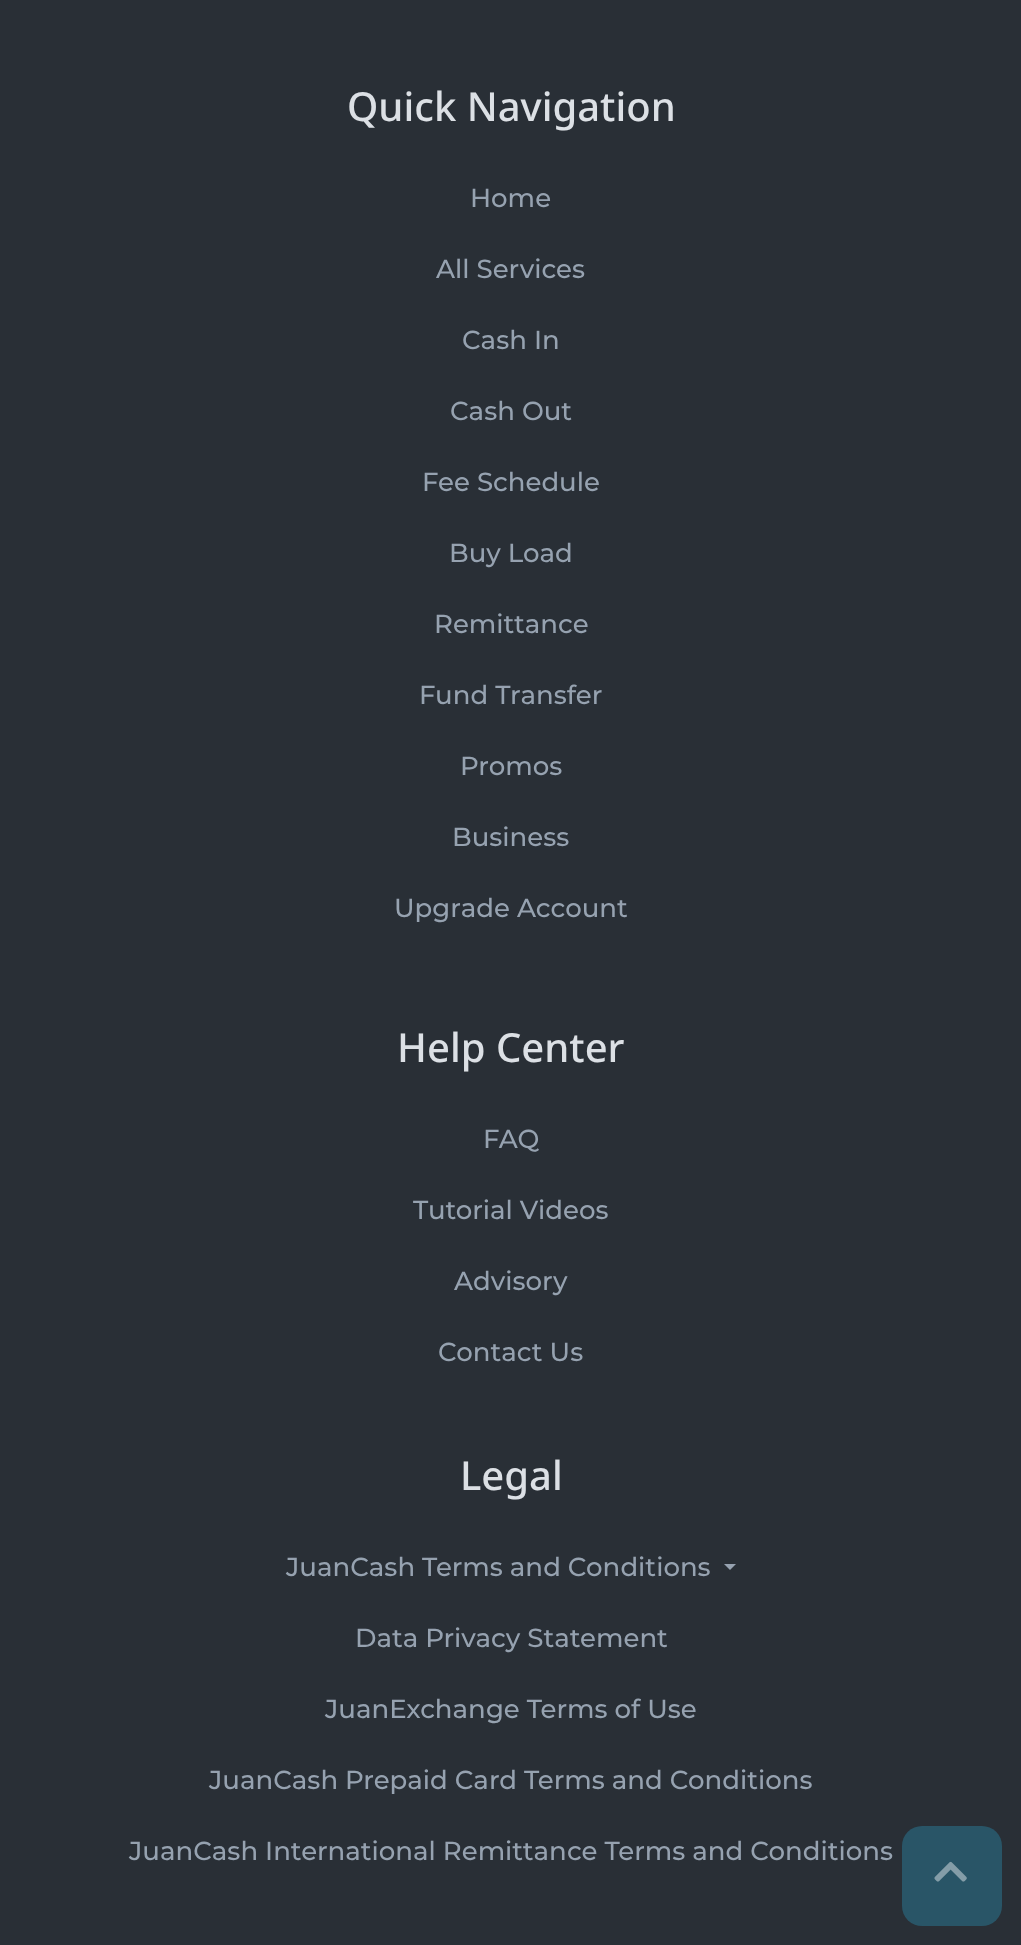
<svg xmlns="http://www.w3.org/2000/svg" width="1021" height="1945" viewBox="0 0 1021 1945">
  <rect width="100%" height="100%" fill="rgb(41,47,54)"/>
  <text x="347" y="121" font-family="Noto Sans" font-size="40" font-weight="500" fill="rgb(220,224,229)">Quick Navigation</text>
  <g font-family="Montserrat" font-size="26" font-weight="500" fill="rgb(150,162,176)">
    <text x="470" y="207">Home</text>
    <text x="436" y="278">All Services</text>
    <text x="462" y="349">Cash In</text>
    <text x="450" y="420">Cash Out</text>
    <text x="422" y="491">Fee Schedule</text>
    <text x="449" y="562">Buy Load</text>
    <text x="434" y="633">Remittance</text>
    <text x="419" y="704">Fund Transfer</text>
    <text x="460" y="775">Promos</text>
    <text x="452" y="846">Business</text>
    <text x="394" y="917">Upgrade Account</text>
  </g>
  <text x="397" y="1062" font-family="Noto Sans" font-size="40" font-weight="500" fill="rgb(220,224,229)">Help Center</text>
  <g font-family="Montserrat" font-size="26" font-weight="500" fill="rgb(150,162,176)">
    <text x="483" y="1148">FAQ</text>
    <text x="413" y="1219">Tutorial Videos</text>
    <text x="454" y="1290">Advisory</text>
    <text x="438" y="1361">Contact Us</text>
  </g>
  <text x="460" y="1490" font-family="Noto Sans" font-size="40" font-weight="500" fill="rgb(220,224,229)">Legal</text>
  <text x="286" y="1576" font-family="Montserrat" font-size="26" font-weight="500" fill="rgb(150,162,176)">JuanCash Terms and Conditions</text>
  <path d="M724 1564H736L730 1570Z" fill="rgb(150,162,176)"/>
  <g font-family="Montserrat" font-size="26" font-weight="500" fill="rgb(150,162,176)">
    <text x="355" y="1647">Data Privacy Statement</text>
    <text x="325" y="1718">JuanExchange Terms of Use</text>
    <text x="209" y="1789">JuanCash Prepaid Card Terms and Conditions</text>
    <text x="129" y="1860">JuanCash International Remittance Terms and Conditions</text>
  </g>
  <rect x="902" y="1826" width="100" height="100" rx="20" fill="rgb(41,85,103)"/>
  <image x="934" y="1861" width="33" height="21" href="pic1.png"/>
</svg>
